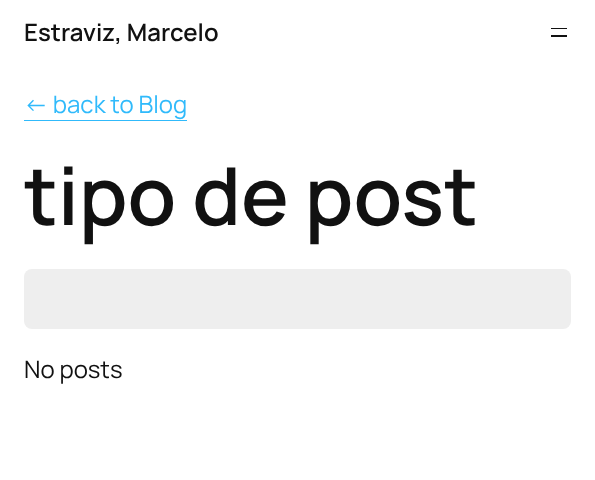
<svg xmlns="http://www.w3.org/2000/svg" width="595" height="480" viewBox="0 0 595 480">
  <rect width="100%" height="100%" fill="rgb(255,255,255)"/>
  <text x="24" y="41" font-family="Manrope" font-size="24" font-weight="600" fill="rgb(17,17,17)">Estraviz, Marcelo</text>
  <rect x="551" y="28" width="16" height="1" fill="rgb(17,17,17)"/>
  <rect x="551" y="35" width="16" height="2" fill="rgb(17,17,17)"/>
  <text x="24" y="113" font-family="Manrope" font-size="24" fill="rgb(48,186,251)">← back to Blog</text>
  <rect x="24" y="120" width="163" height="1" fill="rgb(48,186,251)"/>
  <text x="24" y="225" font-family="Manrope" font-size="80" font-weight="600" fill="rgb(17,17,17)">tipo de post</text>
  <rect x="24" y="269" width="547" height="60" rx="8" fill="rgb(238,238,238)"/>
  <text x="24" y="378" font-family="Manrope" font-size="24" fill="rgb(17,17,17)">No posts</text>
</svg>
